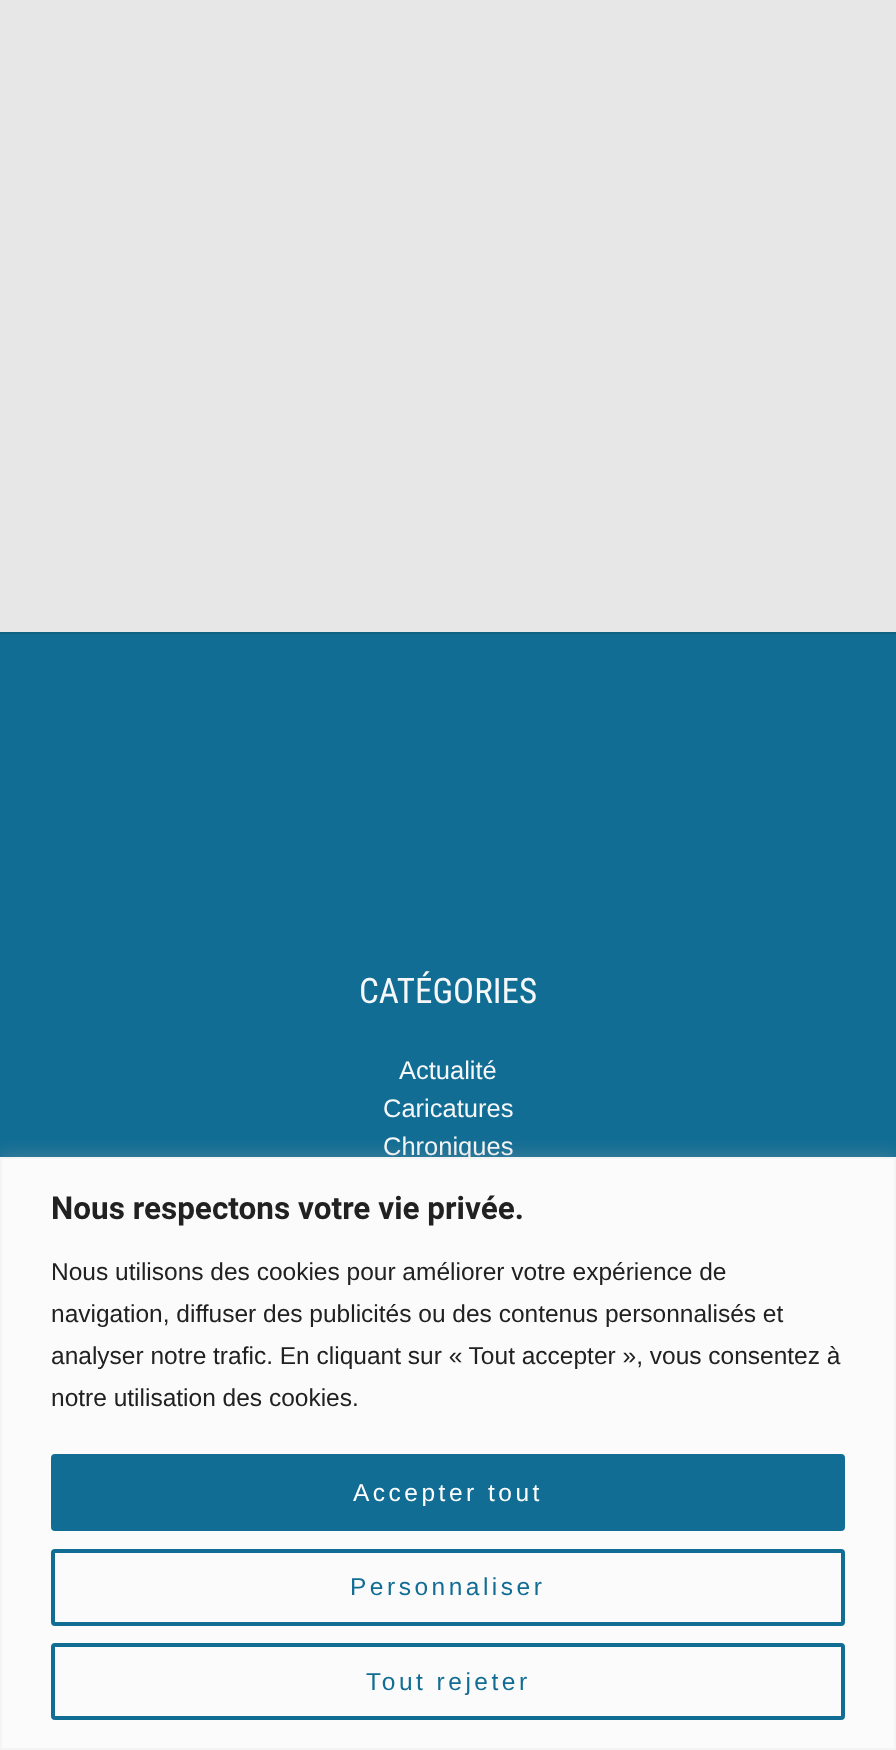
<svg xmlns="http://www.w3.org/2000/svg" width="896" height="1750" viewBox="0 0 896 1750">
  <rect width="100%" height="100%" fill="rgb(231,231,231)"/>
  <rect x="0" y="634" width="896" height="523" fill="rgb(18,109,148)"/>
  <rect x="0" y="632" width="896" height="2" fill="rgb(16,98,133)"/>
  <text x="359" y="1003" font-family="Roboto Condensed" font-size="35" fill="rgb(246,247,248)">CATÉGORIES</text>
  <g font-family="Liberation Sans" font-size="25.5" fill="rgb(246,247,248)">
    <text x="399" y="1079">Actualité</text>
    <text>
      <tspan x="383" y="1117">Caricatures</tspan>
      <tspan x="383" y="1155">Chroniques</tspan>
    </text>
  </g>
  <rect x="0" y="1155" width="896" height="593" fill="rgba(172,171,171,0.3)" filter="blur(9px)"/>
  <rect x="1" y="1158" width="894" height="591" fill="rgb(251,251,251)" stroke="rgb(244,244,244)" stroke-width="2"/>
  <text x="51" y="1219" font-family="Roboto" font-size="31.5" font-weight="bold" fill="rgb(33,33,33)">Nous respectons votre vie privée.</text>
  <g font-family="Liberation Sans" font-size="24.5" fill="rgb(33,33,33)">
    <text>
      <tspan x="51" y="1280">Nous utilisons des cookies pour améliorer votre expérience de</tspan>
      <tspan x="51" y="1322">navigation, diffuser des publicités ou des contenus personnalisés et</tspan>
      <tspan x="51" y="1364">analyser notre trafic. En cliquant sur « Tout accepter », vous consentez à</tspan>
      <tspan x="51" y="1406">notre utilisation des cookies.</tspan>
    </text>
  </g>
  <rect x="53" y="1456" width="790" height="73" rx="2" fill="rgb(18,109,148)" stroke="rgb(18,109,148)" stroke-width="4"/>
  <text x="353" y="1501" font-family="Liberation Sans" font-size="24.5" letter-spacing="3.5" fill="rgb(255,255,255)">Accepter tout</text>
  <rect x="53" y="1551" width="790" height="73" rx="2" fill="none" stroke="rgb(18,109,148)" stroke-width="4"/>
  <text x="350" y="1595" font-family="Liberation Sans" font-size="24.5" letter-spacing="3.5" fill="rgb(18,109,148)">Personnaliser</text>
  <rect x="53" y="1645" width="790" height="73" rx="2" fill="none" stroke="rgb(18,109,148)" stroke-width="4"/>
  <text x="366" y="1690" font-family="Liberation Sans" font-size="24.5" letter-spacing="3.5" fill="rgb(18,109,148)">Tout rejeter</text>
</svg>
